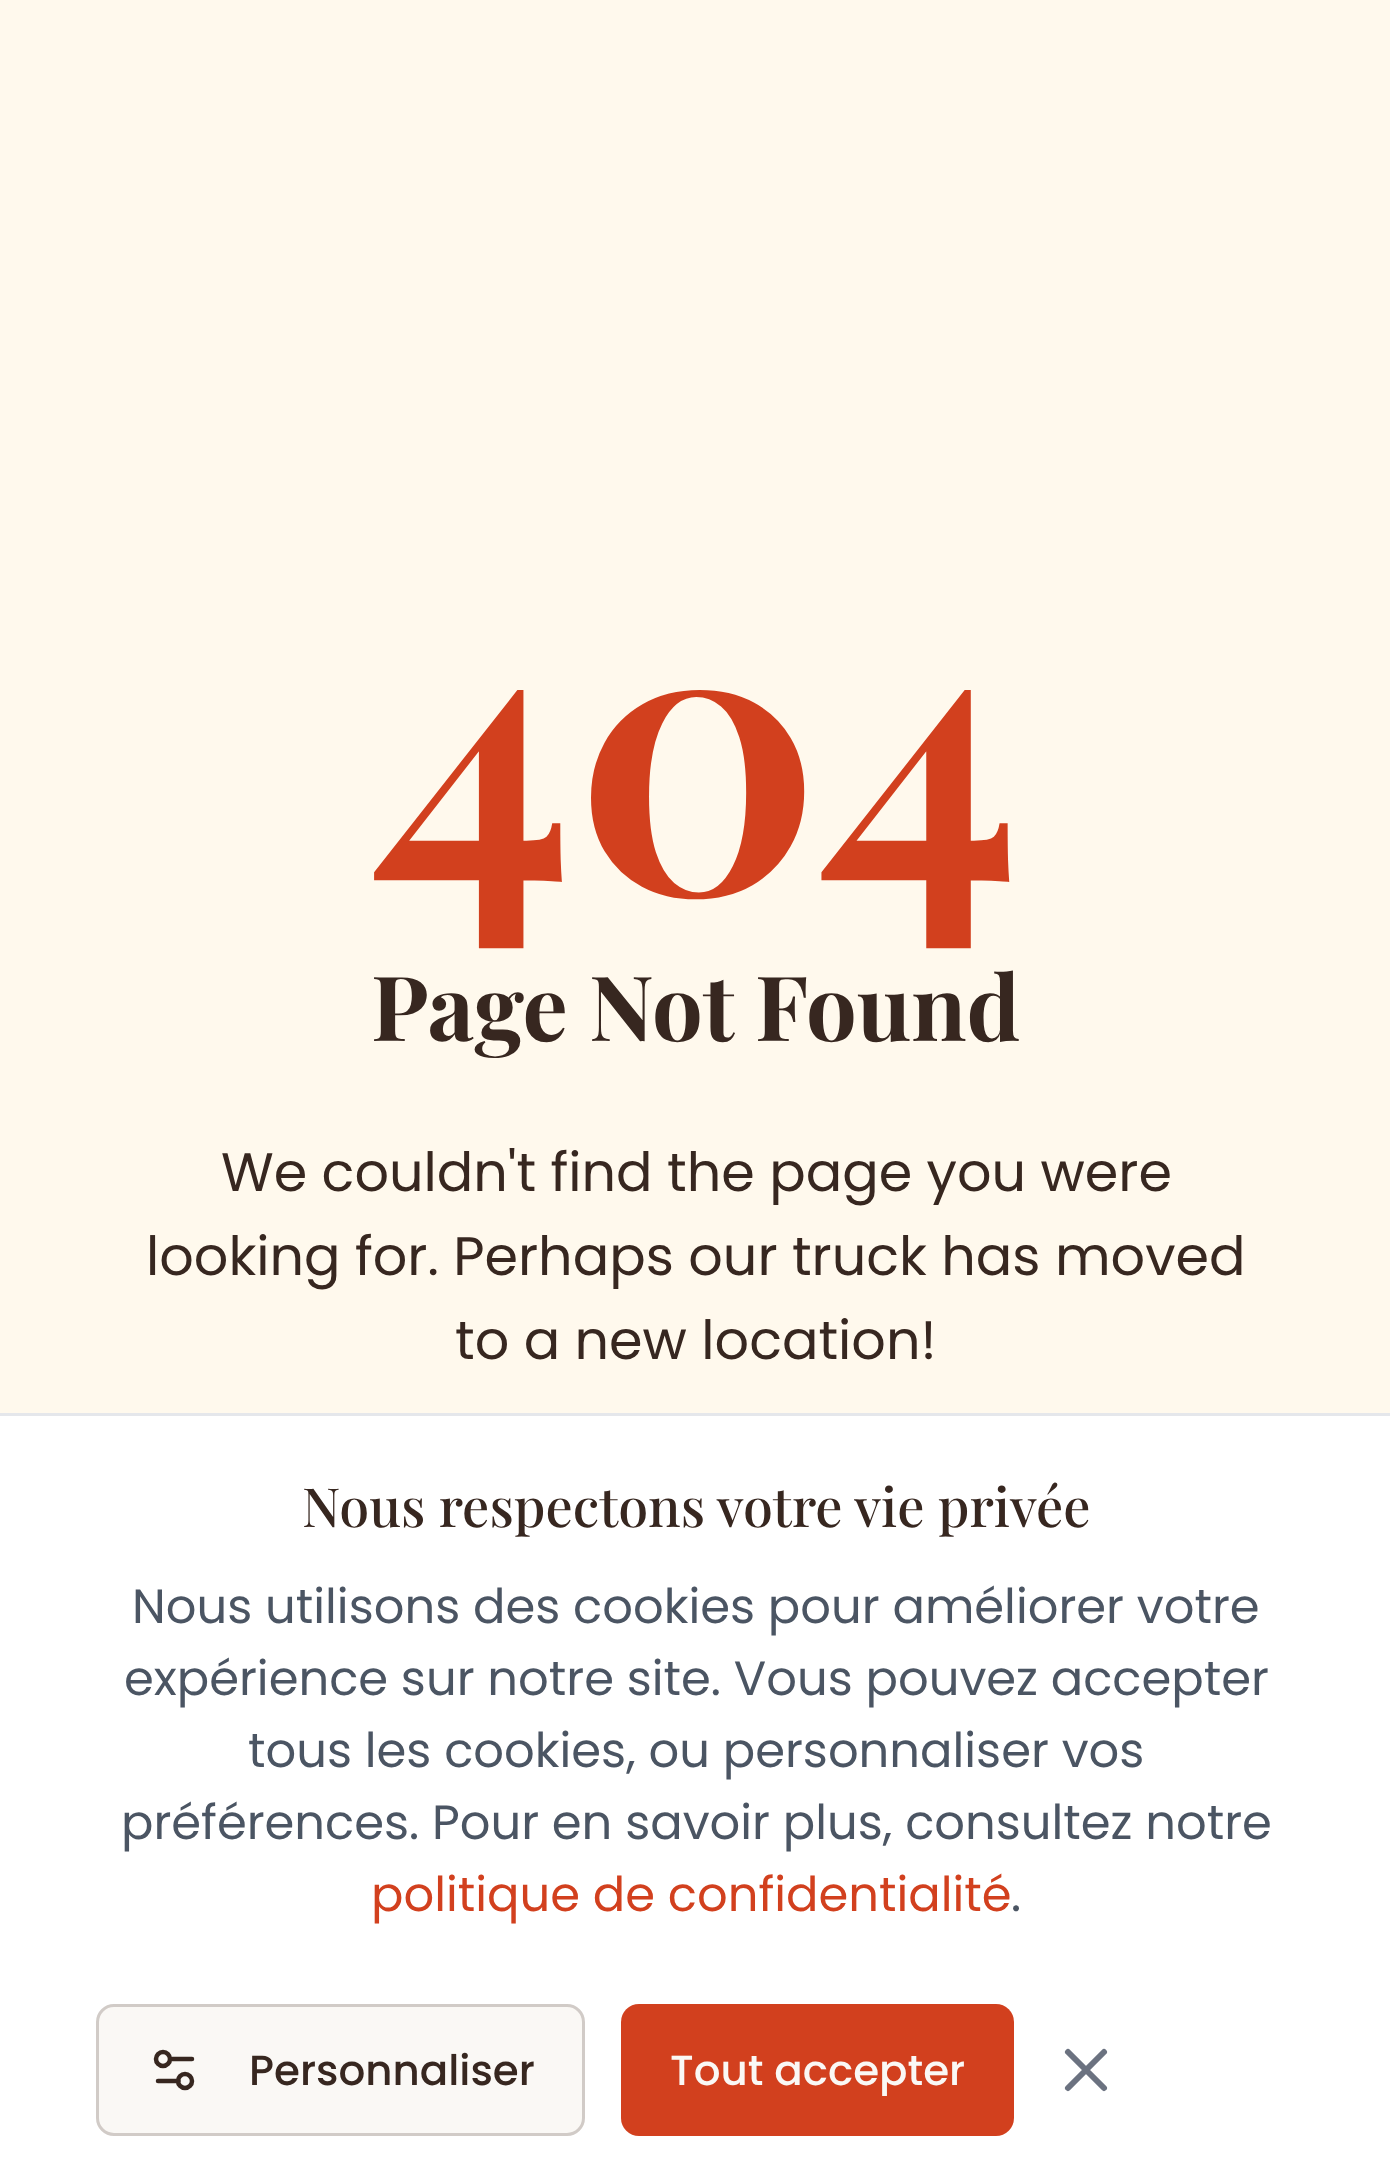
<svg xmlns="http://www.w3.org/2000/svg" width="1390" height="2183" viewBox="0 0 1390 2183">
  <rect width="100%" height="100%" fill="rgb(255,249,237)"/>
  <text x="371" y="894" font-family="Playfair Display" font-size="384" font-weight="bold" fill="rgb(210,64,30)">404</text>
  <text x="371" y="1041" font-family="Playfair Display" font-size="90" font-weight="bold" fill="rgb(55,39,32)">Page Not Found</text>
  <g font-family="Poppins" font-size="54" fill="rgb(55,39,32)">
    <text x="221" y="1191">We couldn't find the page you were</text>
    <text x="146" y="1275">looking for. Perhaps our truck has moved</text>
    <text x="455" y="1359">to a new location!</text>
  </g>
  <rect x="0" y="1416" width="1390" height="767" fill="rgb(255,255,255)"/>
  <rect x="0" y="1413" width="1390" height="3" fill="rgb(229,231,235)"/>
  <text x="302" y="1527" font-family="Playfair Display" font-size="54" font-weight="500" fill="rgb(55,39,32)">Nous respectons votre vie privée</text>
  <g font-family="Poppins" font-size="48" fill="rgb(75,85,99)">
    <text x="132" y="1623">Nous utilisons des cookies pour améliorer votre</text>
    <text x="124" y="1695">expérience sur notre site. Vous pouvez accepter</text>
    <text x="248" y="1767">tous les cookies, ou personnaliser vos</text>
    <text x="121" y="1839">préférences. Pour en savoir plus, consultez notre</text>
  </g>
  <text x="371" y="1911" font-family="Poppins" font-size="48" fill="rgb(210,64,30)">politique de confidentialité</text>
  <text x="1011" y="1911" font-family="Poppins" font-size="48" fill="rgb(75,85,99)">.</text>
  <rect x="97.5" y="2005.5" width="486" height="129" rx="16.5" fill="rgb(250,248,245)" stroke="rgb(209,203,199)" stroke-width="3"/>
  <path d="M192 2059H172M178.5 2081H158" fill="none" stroke="rgb(55,39,32)" stroke-width="4.5" stroke-linecap="round" stroke-linejoin="round"/>
  <circle cx="185" cy="2081" r="7" fill="none" stroke="rgb(55,39,32)" stroke-width="4.5"/>
  <circle cx="163" cy="2059" r="7" fill="none" stroke="rgb(55,39,32)" stroke-width="4.5"/>
  <text x="249" y="2085" font-family="Poppins" font-size="42" font-weight="500" fill="rgb(55,39,32)">Personnaliser</text>
  <rect x="621" y="2004" width="393" height="132" rx="18" fill="rgb(210,64,30)"/>
  <text x="670" y="2085" font-family="Poppins" font-size="42" font-weight="500" fill="rgb(250,248,245)">Tout accepter</text>
  <path d="M1104 2052L1068 2088M1068 2052L1104 2088" fill="none" stroke="rgb(107,114,128)" stroke-width="6" stroke-linecap="round" stroke-linejoin="round"/>
</svg>
